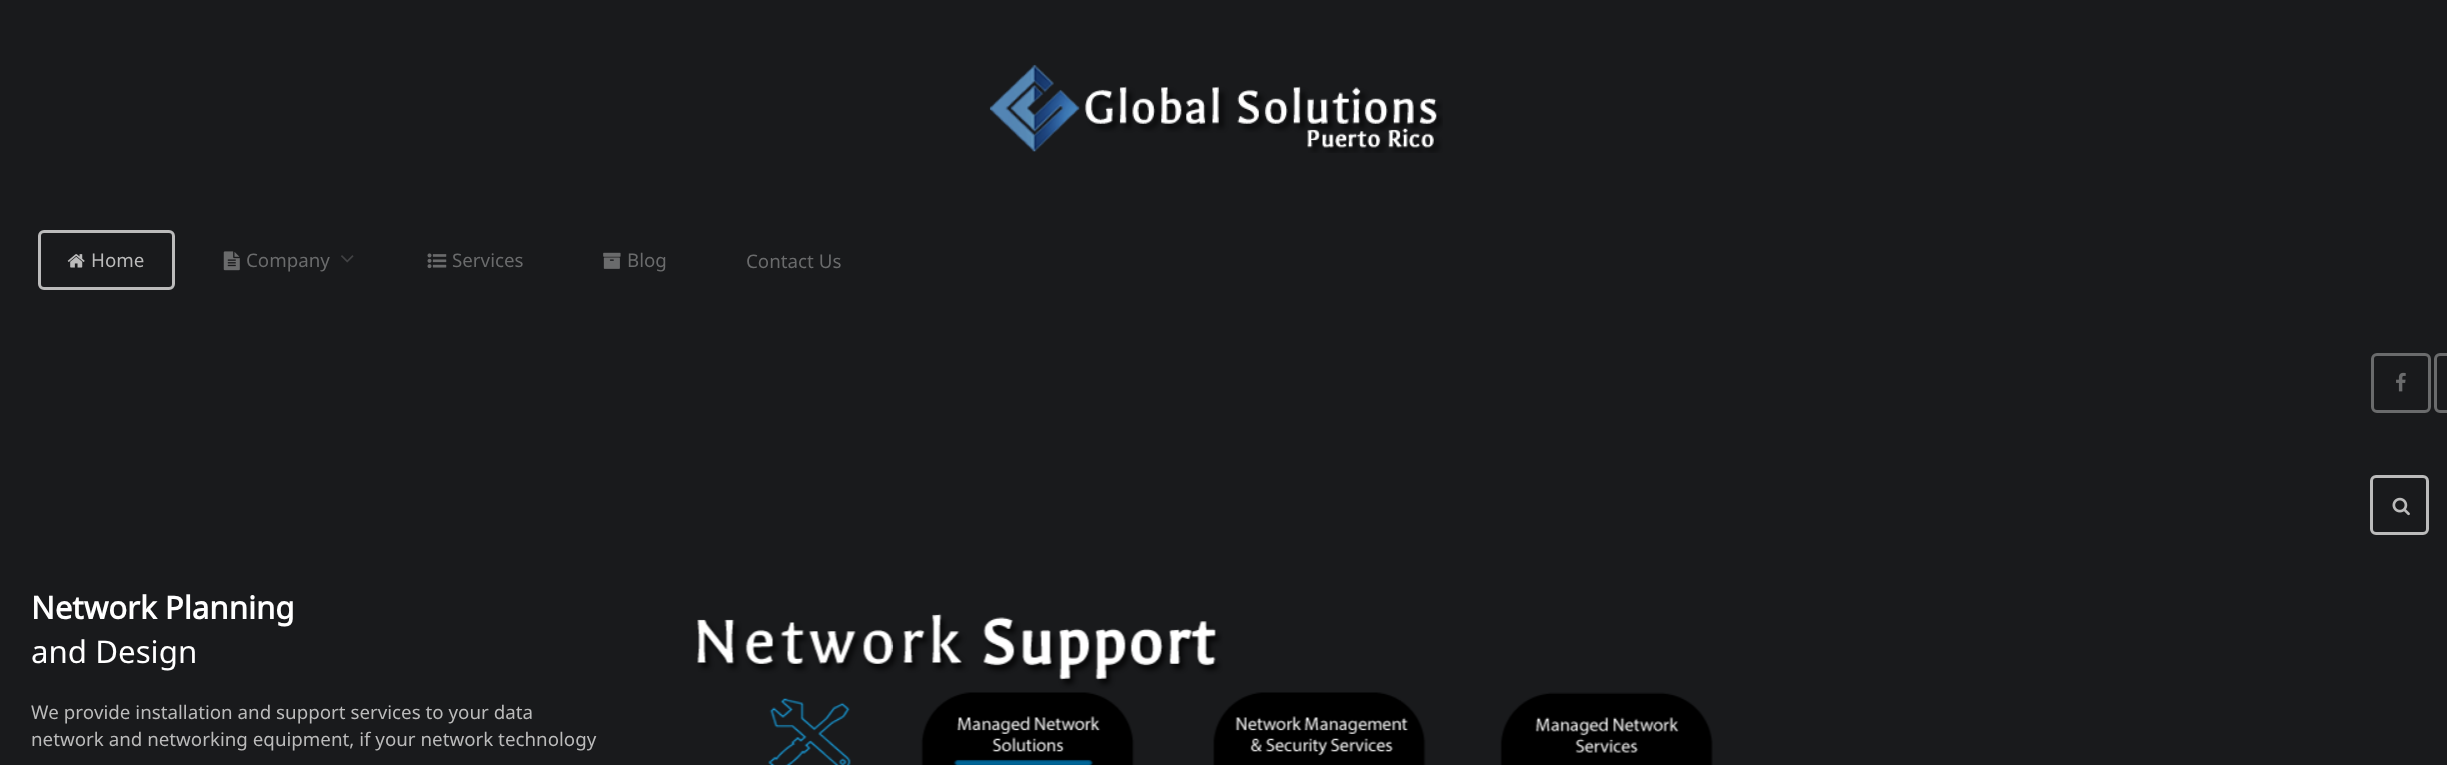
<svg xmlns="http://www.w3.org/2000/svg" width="2447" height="765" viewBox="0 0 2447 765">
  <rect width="100%" height="100%" fill="rgb(25,26,28)"/>
  <image x="989" y="64" width="454" height="89" href="pic1.png"/>
  <rect x="39.5" y="231.5" width="134" height="57" rx="4.5" fill="none" stroke="rgb(187,187,187)" stroke-width="3"/>
  <image x="67" y="254" width="18" height="14" href="pic2.png"/>
  <text x="91" y="267" font-family="Noto Sans" font-size="18.75" fill="rgb(187,187,187)">Home</text>
  <image x="223" y="251" width="17" height="20" href="pic3.png"/>
  <text x="246" y="267" font-family="Noto Sans" font-size="18.75" fill="rgb(106,107,108)">Company</text>
  <image x="341" y="255" width="13" height="8" href="pic4.png"/>
  <image x="427" y="253" width="20" height="16" href="pic5.png"/>
  <text x="452" y="267" font-family="Noto Sans" font-size="18.75" fill="rgb(106,107,108)">Services</text>
  <image x="603" y="252" width="18" height="17" href="pic6.png"/>
  <g font-family="Noto Sans" font-size="18.75" fill="rgb(106,107,108)">
    <text x="627" y="267">Blog</text>
    <text x="746" y="268">Contact Us</text>
  </g>
  <rect x="2372.5" y="354.5" width="57" height="57" rx="4.5" fill="none" stroke="rgb(106,107,108)" stroke-width="3"/>
  <image x="2396" y="372" width="10" height="20" href="pic7.png"/>
  <rect x="2435.5" y="354.5" width="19" height="57" rx="4.5" fill="none" stroke="rgb(106,107,108)" stroke-width="3"/>
  <rect x="2371.5" y="476.5" width="56" height="57" rx="4.5" fill="none" stroke="rgb(187,187,187)" stroke-width="3"/>
  <image x="2392" y="497" width="18" height="19" href="pic8.png"/>
  <text x="31" y="619" font-family="Noto Sans" font-size="31.25" font-weight="bold" fill="rgb(255,255,255)">Network Planning</text>
  <text x="31" y="663" font-family="Noto Sans" font-size="31.25" fill="rgb(255,255,255)">and Design</text>
  <g font-family="Noto Sans" font-size="18.75" fill="rgb(187,187,187)">
    <text>
      <tspan x="31" y="719">We provide installation and support services to your data</tspan>
      <tspan x="31" y="746">network and networking equipment, if your network technology</tspan>
    </text>
  </g>
  <image x="697" y="613" width="1016" height="152" href="pic9.png"/>
</svg>
